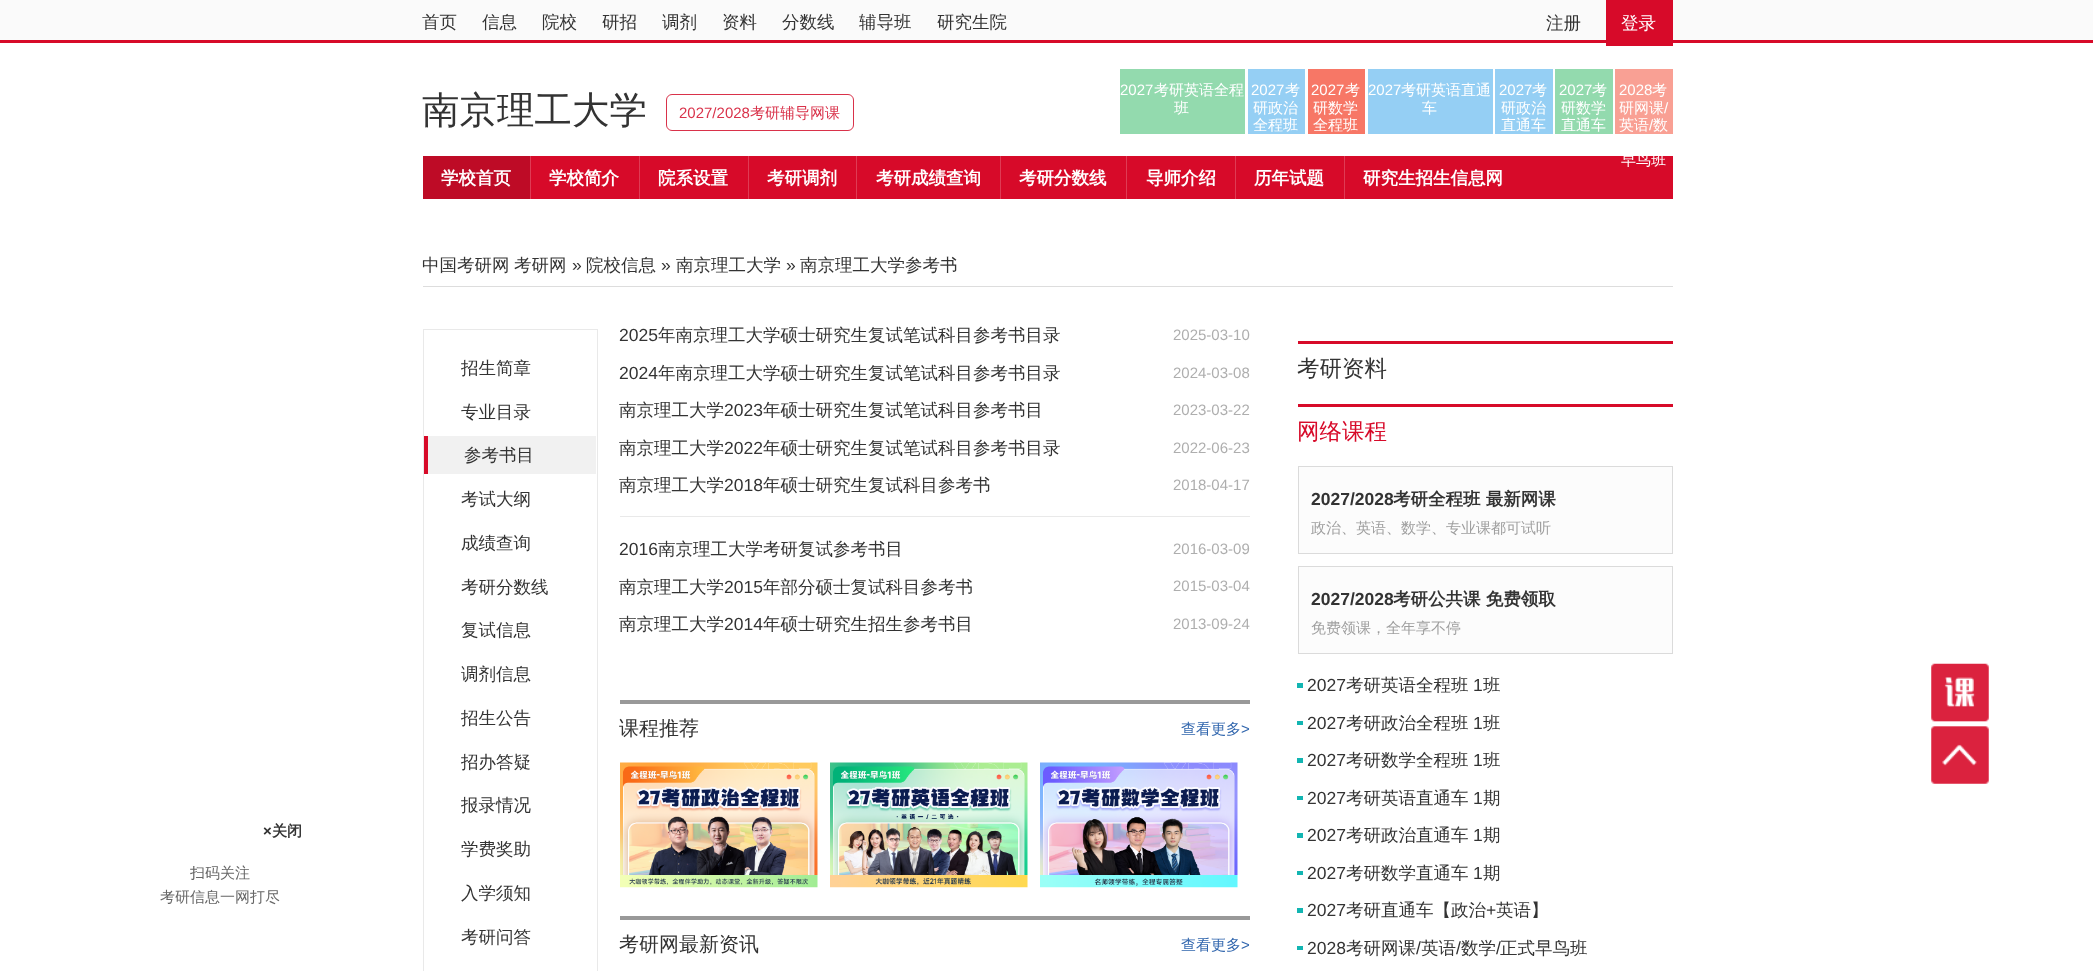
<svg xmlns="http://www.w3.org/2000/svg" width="2093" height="971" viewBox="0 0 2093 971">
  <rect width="100%" height="100%" fill="rgb(255,255,255)"/>
  <rect x="0" y="0" width="2093" height="40" fill="rgb(250,250,250)"/>
  <rect x="0" y="40" width="2093" height="3" fill="rgb(215,10,41)"/>
  <g font-family="WenQuanYi Zen Hei" font-size="17.5" font-weight="500" fill="rgb(51,51,51)">
    <text x="422" y="28">首页</text>
    <text x="482" y="28">信息</text>
    <text x="542" y="28">院校</text>
    <text x="602" y="28">研招</text>
    <text x="662" y="28">调剂</text>
    <text x="722" y="28">资料</text>
    <text x="782" y="28">分数线</text>
    <text x="859" y="28">辅导班</text>
    <text x="937" y="28">研究生院</text>
    <text x="1546" y="29">注册</text>
  </g>
  <rect x="1606" y="0" width="67" height="40" fill="rgb(215,10,41)"/>
  <rect x="1606" y="43" width="67" height="3" fill="rgb(215,10,41)"/>
  <text x="1621" y="29" font-family="WenQuanYi Zen Hei" font-size="17.5" font-weight="500" fill="rgb(255,255,255)">登录</text>
  <text x="422" y="123" font-family="WenQuanYi Zen Hei" font-size="37.5" font-weight="500" fill="rgb(51,51,51)">南京理工大学</text>
  <rect x="666.5" y="94.5" width="187" height="36" rx="5.5" fill="none" stroke="rgb(217,50,74)"/>
  <text x="679" y="118" font-family="Liberation Sans" font-size="15" fill="rgb(217,50,74)">2027/2028</text>
  <text x="750" y="118" font-family="WenQuanYi Zen Hei" font-size="15" font-weight="500" fill="rgb(217,50,74)">考研辅导网课</text>
  <rect x="1120" y="69" width="125" height="65" fill="rgb(147,218,174)"/>
  <text x="1120" y="95" font-family="Liberation Sans" font-size="15" fill="rgb(255,255,255)">2027</text>
  <g font-family="WenQuanYi Zen Hei" font-size="15" font-weight="500" fill="rgb(255,255,255)">
    <text x="1154" y="95">考研英语全程</text>
    <text x="1174" y="113">班</text>
  </g>
  <rect x="1248" y="69" width="57" height="65" fill="rgb(149,207,244)"/>
  <text x="1251" y="95" font-family="Liberation Sans" font-size="15" fill="rgb(255,255,255)">2027</text>
  <g font-family="WenQuanYi Zen Hei" font-size="15" font-weight="500" fill="rgb(255,255,255)">
    <text x="1285" y="95">考</text>
    <text>
      <tspan x="1253" y="113">研政治</tspan>
      <tspan x="1253" y="130">全程班</tspan>
    </text>
  </g>
  <rect x="1308" y="69" width="57" height="65" fill="rgb(247,119,102)"/>
  <text x="1311" y="95" font-family="Liberation Sans" font-size="15" fill="rgb(255,255,255)">2027</text>
  <g font-family="WenQuanYi Zen Hei" font-size="15" font-weight="500" fill="rgb(255,255,255)">
    <text x="1345" y="95">考</text>
    <text>
      <tspan x="1313" y="113">研数学</tspan>
      <tspan x="1313" y="130">全程班</tspan>
    </text>
  </g>
  <rect x="1368" y="69" width="125" height="65" fill="rgb(149,207,244)"/>
  <text x="1368" y="95" font-family="Liberation Sans" font-size="15" fill="rgb(255,255,255)">2027</text>
  <g font-family="WenQuanYi Zen Hei" font-size="15" font-weight="500" fill="rgb(255,255,255)">
    <text x="1401" y="95">考研英语直通</text>
    <text x="1422" y="113">车</text>
  </g>
  <rect x="1495" y="69" width="58" height="65" fill="rgb(149,207,244)"/>
  <text x="1499" y="95" font-family="Liberation Sans" font-size="15" fill="rgb(255,255,255)">2027</text>
  <g font-family="WenQuanYi Zen Hei" font-size="15" font-weight="500" fill="rgb(255,255,255)">
    <text x="1532" y="95">考</text>
    <text>
      <tspan x="1501" y="113">研政治</tspan>
      <tspan x="1501" y="130">直通车</tspan>
    </text>
  </g>
  <rect x="1555" y="69" width="58" height="65" fill="rgb(147,218,174)"/>
  <text x="1559" y="95" font-family="Liberation Sans" font-size="15" fill="rgb(255,255,255)">2027</text>
  <g font-family="WenQuanYi Zen Hei" font-size="15" font-weight="500" fill="rgb(255,255,255)">
    <text x="1592" y="95">考</text>
    <text>
      <tspan x="1561" y="113">研数学</tspan>
      <tspan x="1561" y="130">直通车</tspan>
    </text>
  </g>
  <rect x="1615" y="69" width="58" height="65" fill="rgb(249,160,148)"/>
  <text x="1619" y="95" font-family="Liberation Sans" font-size="15" fill="rgb(255,255,255)">2028</text>
  <g font-family="WenQuanYi Zen Hei" font-size="15" font-weight="500" fill="rgb(255,255,255)">
    <text x="1652" y="95">考</text>
    <text x="1619" y="113">研网课</text>
  </g>
  <text x="1664" y="113" font-family="Liberation Sans" font-size="15" fill="rgb(255,255,255)">/</text>
  <text x="1619" y="130" font-family="WenQuanYi Zen Hei" font-size="15" font-weight="500" fill="rgb(255,255,255)">英语</text>
  <text x="1649" y="130" font-family="Liberation Sans" font-size="15" fill="rgb(255,255,255)">/</text>
  <text x="1653" y="130" font-family="WenQuanYi Zen Hei" font-size="15" font-weight="500" fill="rgb(255,255,255)">数</text>
  <rect x="531" y="156" width="1142" height="43" fill="rgb(215,10,41)"/>
  <text x="1621" y="165" font-family="WenQuanYi Zen Hei" font-size="15" font-weight="500" fill="rgb(255,255,255)">早鸟班</text>
  <rect x="530" y="156" width="1" height="43" fill="rgb(223,59,84)"/>
  <rect x="423" y="156" width="107" height="43" fill="rgb(190,11,38)"/>
  <text x="441" y="184" font-family="WenQuanYi Zen Hei" font-size="17.5" font-weight="bold" fill="rgb(255,255,255)">学校首页</text>
  <rect x="639" y="156" width="1" height="43" fill="rgb(223,59,84)"/>
  <text x="549" y="184" font-family="WenQuanYi Zen Hei" font-size="17.5" font-weight="bold" fill="rgb(255,255,255)">学校简介</text>
  <rect x="748" y="156" width="1" height="43" fill="rgb(223,59,84)"/>
  <text x="658" y="184" font-family="WenQuanYi Zen Hei" font-size="17.5" font-weight="bold" fill="rgb(255,255,255)">院系设置</text>
  <rect x="856" y="156" width="1" height="43" fill="rgb(223,59,84)"/>
  <text x="767" y="184" font-family="WenQuanYi Zen Hei" font-size="17.5" font-weight="bold" fill="rgb(255,255,255)">考研调剂</text>
  <rect x="1000" y="156" width="1" height="43" fill="rgb(223,59,84)"/>
  <text x="876" y="184" font-family="WenQuanYi Zen Hei" font-size="17.5" font-weight="bold" fill="rgb(255,255,255)">考研成绩查询</text>
  <rect x="1126" y="156" width="1" height="43" fill="rgb(223,59,84)"/>
  <text x="1019" y="184" font-family="WenQuanYi Zen Hei" font-size="17.5" font-weight="bold" fill="rgb(255,255,255)">考研分数线</text>
  <rect x="1235" y="156" width="1" height="43" fill="rgb(223,59,84)"/>
  <text x="1146" y="184" font-family="WenQuanYi Zen Hei" font-size="17.5" font-weight="bold" fill="rgb(255,255,255)">导师介绍</text>
  <rect x="1344" y="156" width="1" height="43" fill="rgb(223,59,84)"/>
  <g font-family="WenQuanYi Zen Hei" font-size="17.5" font-weight="bold" fill="rgb(255,255,255)">
    <text x="1254" y="184">历年试题</text>
    <text x="1363" y="184">研究生招生信息网</text>
  </g>
  <rect x="423" y="286" width="1250" height="1" fill="rgb(221,221,221)"/>
  <g font-family="WenQuanYi Zen Hei" font-size="17.5" font-weight="500" fill="rgb(51,51,51)">
    <text x="422" y="271">中国考研网</text>
    <text x="514" y="271">考研网</text>
  </g>
  <text x="572" y="271" font-family="Liberation Sans" font-size="17.5" fill="rgb(51,51,51)">»</text>
  <text x="586" y="271" font-family="WenQuanYi Zen Hei" font-size="17.5" font-weight="500" fill="rgb(51,51,51)">院校信息</text>
  <text x="661" y="271" font-family="Liberation Sans" font-size="17.5" fill="rgb(51,51,51)">»</text>
  <text x="676" y="271" font-family="WenQuanYi Zen Hei" font-size="17.5" font-weight="500" fill="rgb(51,51,51)">南京理工大学</text>
  <text x="786" y="271" font-family="Liberation Sans" font-size="17.5" fill="rgb(51,51,51)">»</text>
  <text x="800" y="271" font-family="WenQuanYi Zen Hei" font-size="17.5" font-weight="500" fill="rgb(51,51,51)">南京理工大学参考书</text>
  <rect x="423.5" y="329.5" width="174" height="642" fill="none" stroke="rgb(233,233,233)"/>
  <g font-family="WenQuanYi Zen Hei" font-size="17.5" font-weight="500" fill="rgb(51,51,51)">
    <text x="461" y="374">招生简章</text>
    <text x="461" y="418">专业目录</text>
  </g>
  <rect x="428" y="436" width="168" height="38" fill="rgb(241,241,241)"/>
  <rect x="424" y="436" width="4" height="38" fill="rgb(215,10,41)"/>
  <g font-family="WenQuanYi Zen Hei" font-size="17.5" font-weight="500" fill="rgb(51,51,51)">
    <text x="464" y="461">参考书目</text>
    <text x="461" y="505">考试大纲</text>
    <text x="461" y="549">成绩查询</text>
    <text x="461" y="593">考研分数线</text>
    <text x="461" y="636">复试信息</text>
    <text x="461" y="680">调剂信息</text>
    <text x="461" y="724">招生公告</text>
    <text x="461" y="768">招办答疑</text>
    <text x="461" y="811">报录情况</text>
    <text x="461" y="855">学费奖助</text>
    <text x="461" y="899">入学须知</text>
    <text x="461" y="943">考研问答</text>
  </g>
  <text x="619" y="341" font-family="Liberation Sans" font-size="17.5" fill="rgb(51,51,51)">2025</text>
  <text x="658" y="341" font-family="WenQuanYi Zen Hei" font-size="17.5" font-weight="500" fill="rgb(51,51,51)">年南京理工大学硕士研究生复试笔试科目参考书目录</text>
  <text x="1173" y="340" font-family="Liberation Sans" font-size="15" fill="rgb(174,174,174)">2025-03-10</text>
  <text x="619" y="379" font-family="Liberation Sans" font-size="17.5" fill="rgb(51,51,51)">2024</text>
  <text x="658" y="379" font-family="WenQuanYi Zen Hei" font-size="17.5" font-weight="500" fill="rgb(51,51,51)">年南京理工大学硕士研究生复试笔试科目参考书目录</text>
  <text x="1173" y="378" font-family="Liberation Sans" font-size="15" fill="rgb(174,174,174)">2024-03-08</text>
  <text x="619" y="416" font-family="WenQuanYi Zen Hei" font-size="17.5" font-weight="500" fill="rgb(51,51,51)">南京理工大学</text>
  <text x="724" y="416" font-family="Liberation Sans" font-size="17.5" fill="rgb(51,51,51)">2023</text>
  <text x="763" y="416" font-family="WenQuanYi Zen Hei" font-size="17.5" font-weight="500" fill="rgb(51,51,51)">年硕士研究生复试笔试科目参考书目</text>
  <text x="1173" y="415" font-family="Liberation Sans" font-size="15" fill="rgb(174,174,174)">2023-03-22</text>
  <text x="619" y="454" font-family="WenQuanYi Zen Hei" font-size="17.5" font-weight="500" fill="rgb(51,51,51)">南京理工大学</text>
  <text x="724" y="454" font-family="Liberation Sans" font-size="17.5" fill="rgb(51,51,51)">2022</text>
  <text x="763" y="454" font-family="WenQuanYi Zen Hei" font-size="17.5" font-weight="500" fill="rgb(51,51,51)">年硕士研究生复试笔试科目参考书目录</text>
  <text x="1173" y="453" font-family="Liberation Sans" font-size="15" fill="rgb(174,174,174)">2022-06-23</text>
  <rect x="620" y="516" width="630" height="1" fill="rgb(233,233,233)"/>
  <text x="619" y="491" font-family="WenQuanYi Zen Hei" font-size="17.5" font-weight="500" fill="rgb(51,51,51)">南京理工大学</text>
  <text x="724" y="491" font-family="Liberation Sans" font-size="17.5" fill="rgb(51,51,51)">2018</text>
  <text x="763" y="491" font-family="WenQuanYi Zen Hei" font-size="17.5" font-weight="500" fill="rgb(51,51,51)">年硕士研究生复试科目参考书</text>
  <text x="1173" y="490" font-family="Liberation Sans" font-size="15" fill="rgb(174,174,174)">2018-04-17</text>
  <text x="619" y="555" font-family="Liberation Sans" font-size="17.5" fill="rgb(51,51,51)">2016</text>
  <text x="658" y="555" font-family="WenQuanYi Zen Hei" font-size="17.5" font-weight="500" fill="rgb(51,51,51)">南京理工大学考研复试参考书目</text>
  <text x="1173" y="554" font-family="Liberation Sans" font-size="15" fill="rgb(174,174,174)">2016-03-09</text>
  <text x="619" y="593" font-family="WenQuanYi Zen Hei" font-size="17.5" font-weight="500" fill="rgb(51,51,51)">南京理工大学</text>
  <text x="724" y="593" font-family="Liberation Sans" font-size="17.5" fill="rgb(51,51,51)">2015</text>
  <text x="763" y="593" font-family="WenQuanYi Zen Hei" font-size="17.5" font-weight="500" fill="rgb(51,51,51)">年部分硕士复试科目参考书</text>
  <text x="1173" y="591" font-family="Liberation Sans" font-size="15" fill="rgb(174,174,174)">2015-03-04</text>
  <text x="619" y="630" font-family="WenQuanYi Zen Hei" font-size="17.5" font-weight="500" fill="rgb(51,51,51)">南京理工大学</text>
  <text x="724" y="630" font-family="Liberation Sans" font-size="17.5" fill="rgb(51,51,51)">2014</text>
  <text x="763" y="630" font-family="WenQuanYi Zen Hei" font-size="17.5" font-weight="500" fill="rgb(51,51,51)">年硕士研究生招生参考书目</text>
  <text x="1173" y="629" font-family="Liberation Sans" font-size="15" fill="rgb(174,174,174)">2013-09-24</text>
  <rect x="620" y="700" width="630" height="4" fill="rgb(153,153,153)"/>
  <text x="619" y="735" font-family="WenQuanYi Zen Hei" font-size="20" font-weight="500" fill="rgb(51,51,51)">课程推荐</text>
  <text x="1181" y="734" font-family="WenQuanYi Zen Hei" font-size="15" font-weight="500" fill="rgb(50,103,174)">查看更多</text>
  <text x="1241" y="734" font-family="Liberation Sans" font-size="15" fill="rgb(50,103,174)">&gt;</text>
  <image x="620" y="762" width="198" height="126" href="pic1.png"/>
  <image x="830" y="762" width="198" height="126" href="pic2.png"/>
  <image x="1040" y="762" width="198" height="126" href="pic3.png"/>
  <rect x="620" y="916" width="630" height="4" fill="rgb(153,153,153)"/>
  <text x="619" y="951" font-family="WenQuanYi Zen Hei" font-size="20" font-weight="500" fill="rgb(51,51,51)">考研网最新资讯</text>
  <text x="1181" y="950" font-family="WenQuanYi Zen Hei" font-size="15" font-weight="500" fill="rgb(50,103,174)">查看更多</text>
  <text x="1241" y="950" font-family="Liberation Sans" font-size="15" fill="rgb(50,103,174)">&gt;</text>
  <rect x="1298" y="341" width="375" height="3" fill="rgb(215,10,41)"/>
  <text x="1297" y="376" font-family="WenQuanYi Zen Hei" font-size="22.5" font-weight="500" fill="rgb(51,51,51)">考研资料</text>
  <rect x="1298" y="404" width="375" height="3" fill="rgb(215,10,41)"/>
  <text x="1297" y="439" font-family="WenQuanYi Zen Hei" font-size="22.5" font-weight="500" fill="rgb(215,10,41)">网络课程</text>
  <rect x="1298.5" y="466.5" width="374" height="87" fill="rgb(252,252,252)" stroke="rgb(219,219,219)"/>
  <text x="1311" y="505" font-family="Liberation Sans" font-size="17.5" font-weight="bold" fill="rgb(51,51,51)">2027/2028</text>
  <text x="1393" y="505" font-family="WenQuanYi Zen Hei" font-size="17.5" font-weight="bold" fill="rgb(51,51,51)">考研全程班 最新网课</text>
  <text x="1311" y="533" font-family="WenQuanYi Zen Hei" font-size="15" font-weight="500" fill="rgb(159,159,159)">政治、英语、数学、专业课都可试听</text>
  <rect x="1298.5" y="566.5" width="374" height="87" fill="rgb(252,252,252)" stroke="rgb(219,219,219)"/>
  <text x="1311" y="605" font-family="Liberation Sans" font-size="17.5" font-weight="bold" fill="rgb(51,51,51)">2027/2028</text>
  <text x="1393" y="605" font-family="WenQuanYi Zen Hei" font-size="17.5" font-weight="bold" fill="rgb(51,51,51)">考研公共课 免费领取</text>
  <text x="1311" y="633" font-family="WenQuanYi Zen Hei" font-size="15" font-weight="500" fill="rgb(159,159,159)">免费领课，全年享不停</text>
  <rect x="1297" y="683" width="6" height="5" fill="rgb(18,181,178)"/>
  <text x="1307" y="691" font-family="Liberation Sans" font-size="17.5" fill="rgb(51,51,51)">2027</text>
  <text x="1346" y="691" font-family="WenQuanYi Zen Hei" font-size="17.5" font-weight="500" fill="rgb(51,51,51)">考研英语全程班</text>
  <text x="1473" y="691" font-family="Liberation Sans" font-size="17.5" fill="rgb(51,51,51)">1</text>
  <text x="1483" y="691" font-family="WenQuanYi Zen Hei" font-size="17.5" font-weight="500" fill="rgb(51,51,51)">班</text>
  <rect x="1297" y="721" width="6" height="4" fill="rgb(18,181,178)"/>
  <text x="1307" y="729" font-family="Liberation Sans" font-size="17.5" fill="rgb(51,51,51)">2027</text>
  <text x="1346" y="729" font-family="WenQuanYi Zen Hei" font-size="17.5" font-weight="500" fill="rgb(51,51,51)">考研政治全程班</text>
  <text x="1473" y="729" font-family="Liberation Sans" font-size="17.5" fill="rgb(51,51,51)">1</text>
  <text x="1483" y="729" font-family="WenQuanYi Zen Hei" font-size="17.5" font-weight="500" fill="rgb(51,51,51)">班</text>
  <rect x="1297" y="758" width="6" height="5" fill="rgb(18,181,178)"/>
  <text x="1307" y="766" font-family="Liberation Sans" font-size="17.5" fill="rgb(51,51,51)">2027</text>
  <text x="1346" y="766" font-family="WenQuanYi Zen Hei" font-size="17.5" font-weight="500" fill="rgb(51,51,51)">考研数学全程班</text>
  <text x="1473" y="766" font-family="Liberation Sans" font-size="17.5" fill="rgb(51,51,51)">1</text>
  <text x="1483" y="766" font-family="WenQuanYi Zen Hei" font-size="17.5" font-weight="500" fill="rgb(51,51,51)">班</text>
  <rect x="1297" y="796" width="6" height="4" fill="rgb(18,181,178)"/>
  <text x="1307" y="804" font-family="Liberation Sans" font-size="17.5" fill="rgb(51,51,51)">2027</text>
  <text x="1346" y="804" font-family="WenQuanYi Zen Hei" font-size="17.5" font-weight="500" fill="rgb(51,51,51)">考研英语直通车</text>
  <text x="1473" y="804" font-family="Liberation Sans" font-size="17.5" fill="rgb(51,51,51)">1</text>
  <text x="1483" y="804" font-family="WenQuanYi Zen Hei" font-size="17.5" font-weight="500" fill="rgb(51,51,51)">期</text>
  <rect x="1297" y="833" width="6" height="5" fill="rgb(18,181,178)"/>
  <text x="1307" y="841" font-family="Liberation Sans" font-size="17.5" fill="rgb(51,51,51)">2027</text>
  <text x="1346" y="841" font-family="WenQuanYi Zen Hei" font-size="17.5" font-weight="500" fill="rgb(51,51,51)">考研政治直通车</text>
  <text x="1473" y="841" font-family="Liberation Sans" font-size="17.5" fill="rgb(51,51,51)">1</text>
  <text x="1483" y="841" font-family="WenQuanYi Zen Hei" font-size="17.5" font-weight="500" fill="rgb(51,51,51)">期</text>
  <rect x="1297" y="871" width="6" height="4" fill="rgb(18,181,178)"/>
  <text x="1307" y="879" font-family="Liberation Sans" font-size="17.5" fill="rgb(51,51,51)">2027</text>
  <text x="1346" y="879" font-family="WenQuanYi Zen Hei" font-size="17.5" font-weight="500" fill="rgb(51,51,51)">考研数学直通车</text>
  <text x="1473" y="879" font-family="Liberation Sans" font-size="17.5" fill="rgb(51,51,51)">1</text>
  <text x="1483" y="879" font-family="WenQuanYi Zen Hei" font-size="17.5" font-weight="500" fill="rgb(51,51,51)">期</text>
  <rect x="1297" y="908" width="6" height="5" fill="rgb(18,181,178)"/>
  <text x="1307" y="916" font-family="Liberation Sans" font-size="17.5" fill="rgb(51,51,51)">2027</text>
  <text x="1346" y="916" font-family="WenQuanYi Zen Hei" font-size="17.5" font-weight="500" fill="rgb(51,51,51)">考研直通车【政治</text>
  <text x="1486" y="916" font-family="Liberation Sans" font-size="17.5" fill="rgb(51,51,51)">+</text>
  <text x="1496" y="916" font-family="WenQuanYi Zen Hei" font-size="17.5" font-weight="500" fill="rgb(51,51,51)">英语】</text>
  <rect x="1297" y="946" width="6" height="4" fill="rgb(18,181,178)"/>
  <text x="1307" y="954" font-family="Liberation Sans" font-size="17.5" fill="rgb(51,51,51)">2028</text>
  <text x="1346" y="954" font-family="WenQuanYi Zen Hei" font-size="17.5" font-weight="500" fill="rgb(51,51,51)">考研网课</text>
  <text x="1416" y="954" font-family="Liberation Sans" font-size="17.5" fill="rgb(51,51,51)">/</text>
  <text x="1421" y="954" font-family="WenQuanYi Zen Hei" font-size="17.5" font-weight="500" fill="rgb(51,51,51)">英语</text>
  <text x="1456" y="954" font-family="Liberation Sans" font-size="17.5" fill="rgb(51,51,51)">/</text>
  <text x="1461" y="954" font-family="WenQuanYi Zen Hei" font-size="17.5" font-weight="500" fill="rgb(51,51,51)">数学</text>
  <text x="1496" y="954" font-family="Liberation Sans" font-size="17.5" fill="rgb(51,51,51)">/</text>
  <text x="1500" y="954" font-family="WenQuanYi Zen Hei" font-size="17.5" font-weight="500" fill="rgb(51,51,51)">正式早鸟班</text>
  <image x="1931" y="663" width="58" height="121" href="pic4.png"/>
  <text x="263" y="836" font-family="Liberation Sans" font-size="15" font-weight="bold" fill="rgb(51,51,51)">×</text>
  <text x="272" y="836" font-family="WenQuanYi Zen Hei" font-size="15" font-weight="bold" fill="rgb(51,51,51)">关闭</text>
  <g font-family="WenQuanYi Zen Hei" font-size="15" font-weight="500" fill="rgb(102,102,102)">
    <text x="190" y="878">扫码关注</text>
    <text x="160" y="902">考研信息一网打尽</text>
  </g>
</svg>
